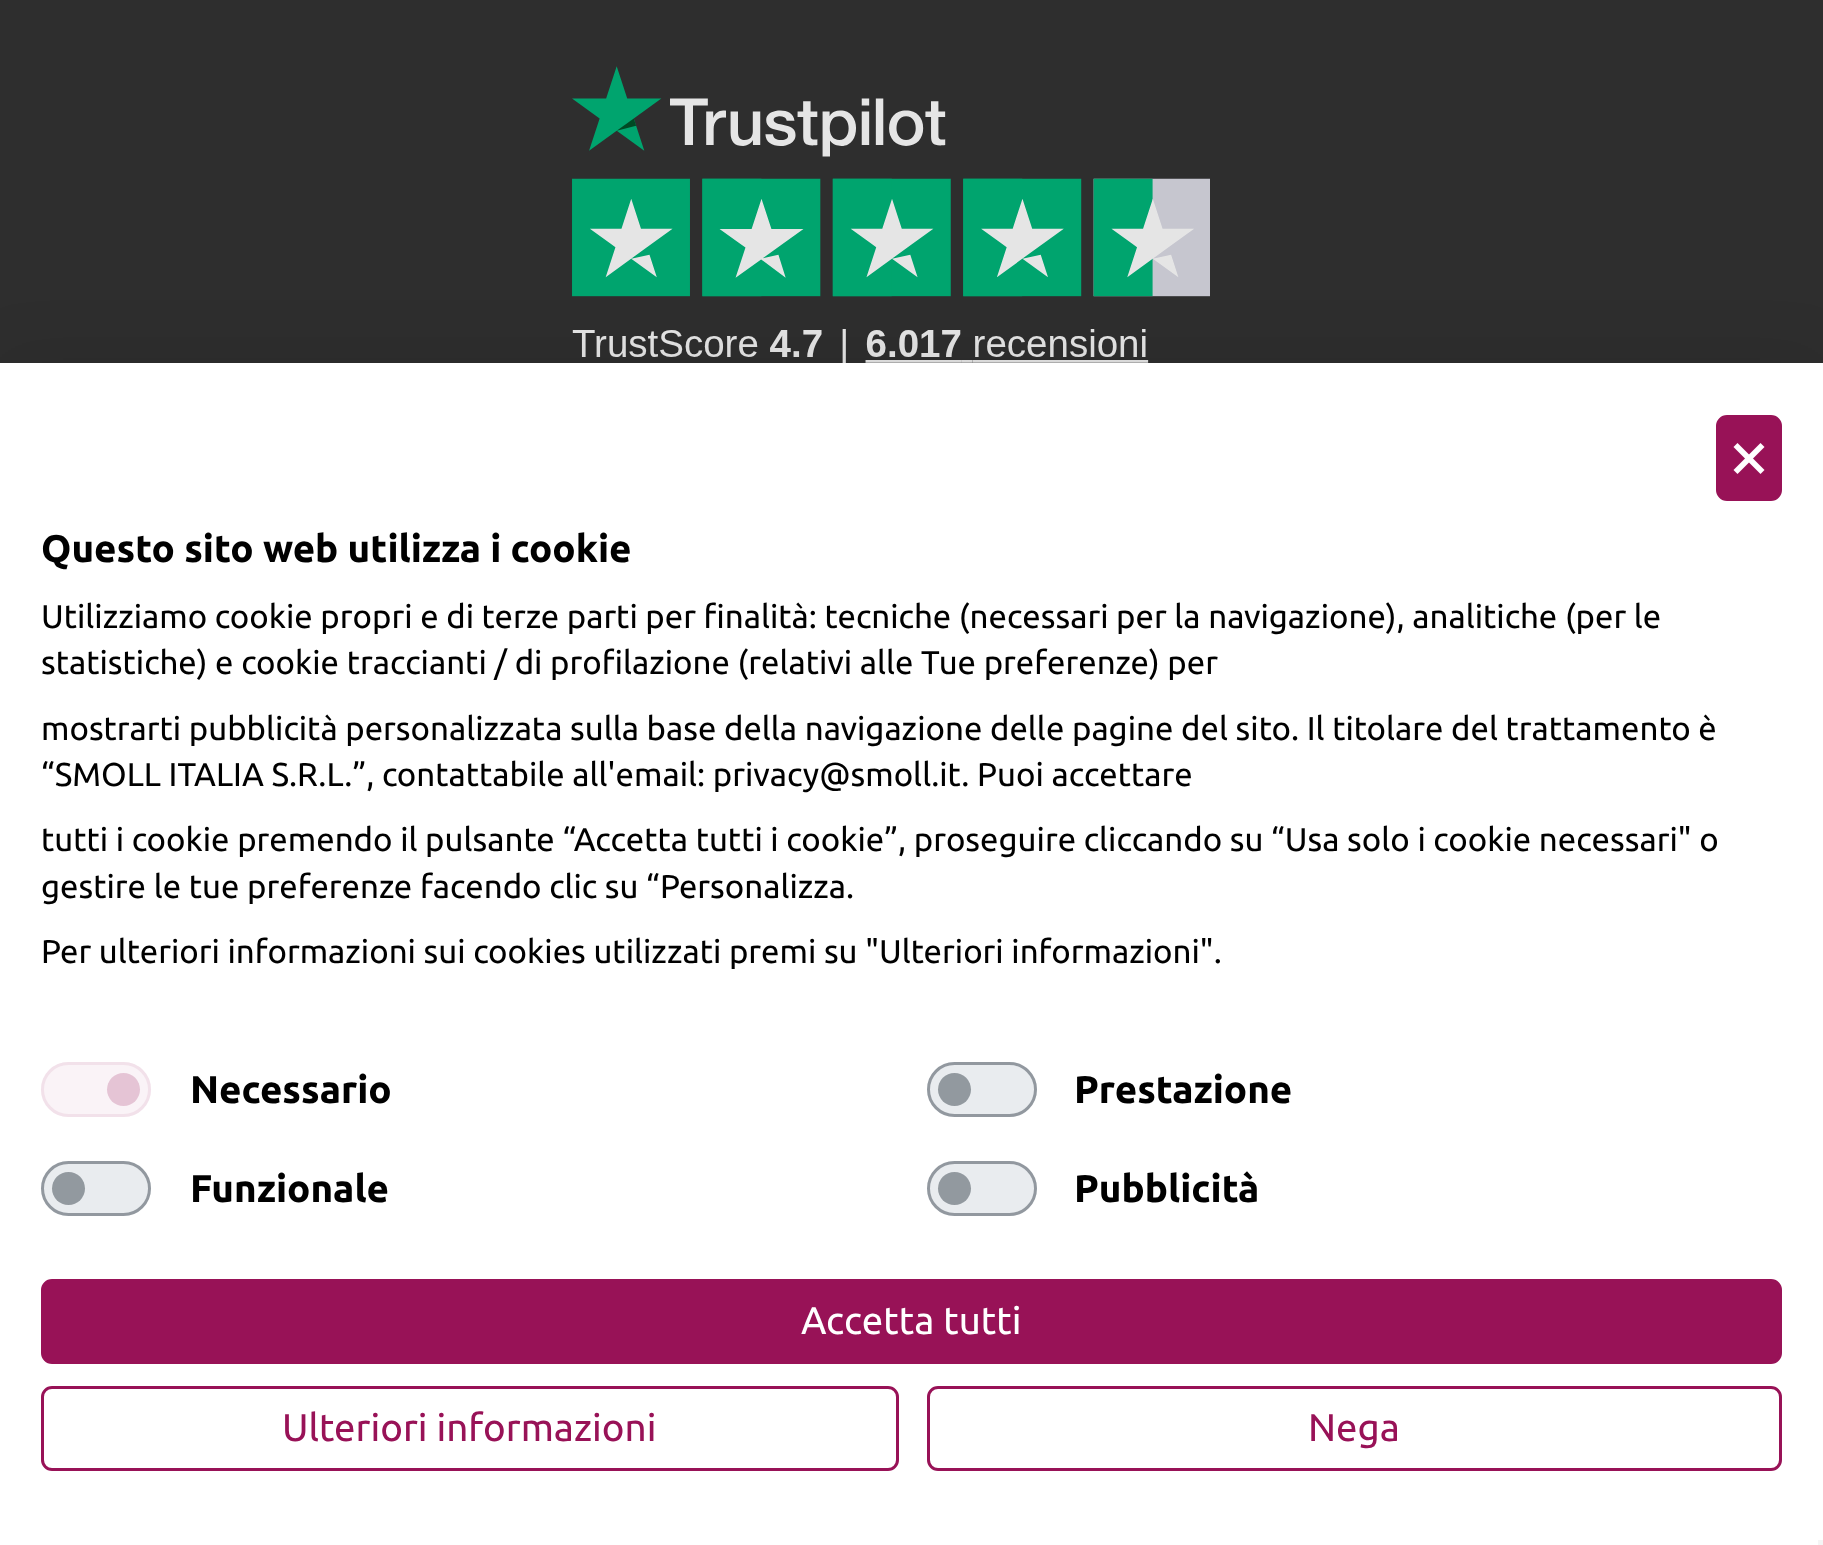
<svg xmlns="http://www.w3.org/2000/svg" width="1823" height="1545" viewBox="0 0 1823 1545">
  <rect width="100%" height="100%" fill="rgb(46,46,46)"/>
  <image x="572" y="66" width="638" height="297" href="pic1.png"/>
  <rect x="0" y="363" width="1823" height="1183" fill="rgba(0,0,0,0.1)" filter="blur(33px)"/>
  <rect x="0" y="363" width="1823" height="1182" fill="rgb(255,255,255)"/>
  <rect x="1717.5" y="416.5" width="63" height="83" rx="9.5" fill="rgb(152,18,87)" stroke="rgb(152,18,87)" stroke-width="3"/>
  <path d="M1760.5 443L1764.5 447L1737.5 474L1733.5 470Z" fill="rgb(255,255,255)"/>
  <path d="M1733.5 447L1737.5 443L1764.5 470L1760.5 474Z" fill="rgb(255,255,255)"/>
  <text x="41" y="562" font-family="Ubuntu" font-size="38.5" font-weight="bold" fill="rgb(0,0,0)">Questo sito web utilizza i cookie</text>
  <g font-family="Ubuntu" font-size="33" fill="rgb(0,0,0)">
    <text>
      <tspan x="41" y="628">Utilizziamo cookie propri e di terze parti per finalità: tecniche (necessari per la navigazione), analitiche (per le</tspan>
      <tspan x="41" y="674">statistiche) e cookie traccianti / di profilazione (relativi alle Tue preferenze) per</tspan>
    </text>
    <text>
      <tspan x="41" y="740">mostrarti pubblicità personalizzata sulla base della navigazione delle pagine del sito. Il titolare del trattamento è</tspan>
      <tspan x="41" y="786">“SMOLL ITALIA S.R.L.”, contattabile all'email: privacy@smoll.it. Puoi accettare</tspan>
      <tspan x="41" y="851">tutti i cookie premendo il pulsante “Accetta tutti i cookie”, proseguire cliccando su “Usa solo i cookie necessari" o</tspan>
      <tspan x="41" y="898">gestire le tue preferenze facendo clic su “Personalizza.</tspan>
      <tspan x="41" y="963">Per ulteriori informazioni sui cookies utilizzati premi su "Ulteriori informazioni".</tspan>
    </text>
  </g>
  <rect x="41" y="1062" width="110" height="55" rx="27.5" fill="rgb(250,243,247)"/>
  <circle cx="123.5" cy="1089.5" r="16.5" fill="rgb(229,196,213)"/>
  <rect x="42.5" y="1063.5" width="107" height="52" rx="26" fill="none" stroke="rgb(242,225,234)" stroke-width="3"/>
  <text x="190" y="1103" font-family="Ubuntu" font-size="38.5" font-weight="bold" fill="rgb(0,0,0)">Necessario</text>
  <rect x="927" y="1062" width="110" height="55" rx="27.5" fill="rgb(233,236,239)"/>
  <circle cx="954.5" cy="1089.5" r="16.5" fill="rgb(146,153,159)"/>
  <rect x="928.5" y="1063.5" width="107" height="52" rx="26" fill="none" stroke="rgba(108,117,125,0.7)" stroke-width="3"/>
  <text x="1074" y="1103" font-family="Ubuntu" font-size="38.5" font-weight="bold" fill="rgb(0,0,0)">Prestazione</text>
  <rect x="41" y="1161" width="110" height="55" rx="27.5" fill="rgb(233,236,239)"/>
  <circle cx="68.5" cy="1188.5" r="16.5" fill="rgb(146,153,159)"/>
  <rect x="42.5" y="1162.5" width="107" height="52" rx="26" fill="none" stroke="rgba(108,117,125,0.7)" stroke-width="3"/>
  <text x="190" y="1202" font-family="Ubuntu" font-size="38.5" font-weight="bold" fill="rgb(0,0,0)">Funzionale</text>
  <rect x="927" y="1161" width="110" height="55" rx="27.5" fill="rgb(233,236,239)"/>
  <circle cx="954.5" cy="1188.5" r="16.5" fill="rgb(146,153,159)"/>
  <rect x="928.5" y="1162.5" width="107" height="52" rx="26" fill="none" stroke="rgba(108,117,125,0.7)" stroke-width="3"/>
  <text x="1074" y="1202" font-family="Ubuntu" font-size="38.5" font-weight="bold" fill="rgb(0,0,0)">Pubblicità</text>
  <rect x="42.5" y="1280.5" width="1738" height="82" rx="9.5" fill="rgb(152,18,87)" stroke="rgb(152,18,87)" stroke-width="3"/>
  <text x="801" y="1334" font-family="Ubuntu" font-size="38.5" fill="rgb(255,255,255)">Accetta tutti</text>
  <rect x="42.5" y="1387.5" width="855" height="82" rx="9.5" fill="none" stroke="rgb(152,18,87)" stroke-width="3"/>
  <text x="282" y="1441" font-family="Ubuntu" font-size="38.5" fill="rgb(152,18,87)">Ulteriori informazioni</text>
  <rect x="928.5" y="1387.5" width="852" height="82" rx="9.5" fill="none" stroke="rgb(152,18,87)" stroke-width="3"/>
  <text x="1308" y="1441" font-family="Ubuntu" font-size="38.5" fill="rgb(152,18,87)">Nega</text>
  <rect x="1818" y="1540" width="5" height="5" fill="rgb(245,245,245)"/>
</svg>
